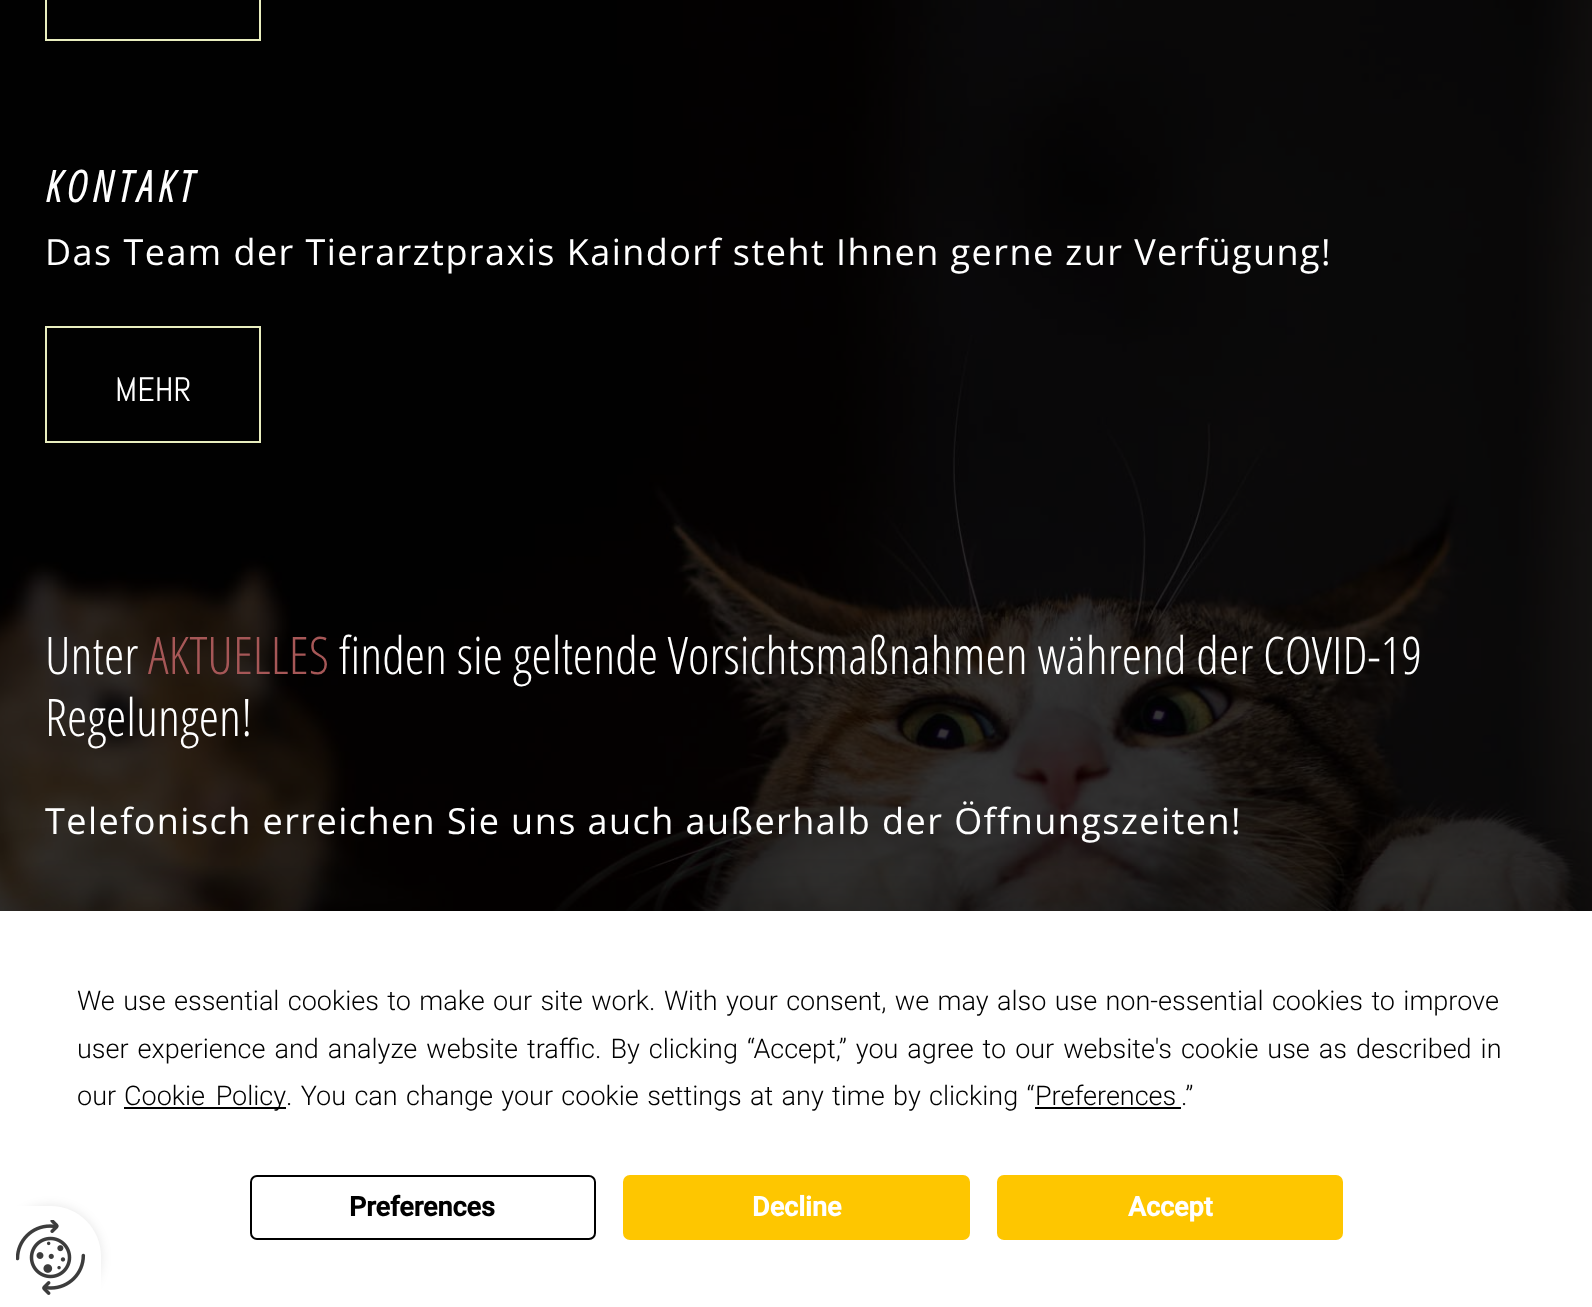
<svg xmlns="http://www.w3.org/2000/svg" width="1592" height="1307" viewBox="0 0 1592 1307">
  <rect width="100%" height="100%" fill="rgb(255,255,255)"/>
  <image x="0" y="0" width="1592" height="911" href="pic1.png"/>
  <rect x="46" y="-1" width="214" height="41" fill="none" stroke="rgb(233,238,191)" stroke-width="2"/>
  <text x="45" y="202" font-family="Open Sans Condensed" font-size="43" font-weight="bold" font-style="italic" letter-spacing="5.5" fill="rgb(255,255,255)">KONTAKT</text>
  <text x="45" y="265" font-family="Open Sans" font-size="36" letter-spacing="1.45" fill="rgb(255,255,255)">Das Team der Tierarztpraxis Kaindorf steht Ihnen gerne zur Verfügung!</text>
  <rect x="46" y="327" width="214" height="115" fill="none" stroke="rgb(233,238,191)" stroke-width="2"/>
  <text x="115" y="401" font-family="Abel" font-size="34" fill="rgb(255,255,255)">MEHR</text>
  <text x="45" y="674" font-family="Open Sans Condensed" font-size="51.75" font-weight="300" fill="rgb(255,255,255)">Unter</text>
  <text x="148" y="674" font-family="Open Sans Condensed" font-size="51.75" font-weight="300" fill="rgb(166,87,87)">AKTUELLES</text>
  <g font-family="Open Sans Condensed" font-size="51.75" font-weight="300" fill="rgb(255,255,255)">
    <text x="339" y="674">finden sie geltende Vorsichtsmaßnahmen während der COVID-19</text>
    <text x="45" y="736">Regelungen!</text>
  </g>
  <text x="45" y="834" font-family="Open Sans" font-size="36" letter-spacing="1.45" fill="rgb(255,255,255)">Telefonisch erreichen Sie uns auch außerhalb der Öffnungszeiten!</text>
  <rect x="0" y="911" width="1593" height="396" fill="rgba(0,0,0,0.25)" filter="blur(39.5px)"/>
  <rect x="0" y="911" width="1592" height="396" fill="rgb(255,255,255)"/>
  <g font-family="Roboto" font-size="27" font-weight="300" fill="rgb(0,0,0)">
    <text>
      <tspan x="77" y="1010" word-spacing="1.8">We use essential cookies to make our site work. With your consent, we may also use non-essential cookies to improve</tspan>
      <tspan x="77" y="1058" word-spacing="2.4">user experience and analyze website traffic. By clicking “Accept,” you agree to our website's cookie use as described in</tspan>
      <tspan x="77" y="1105">our</tspan>
    </text>
  </g>
  <rect x="124" y="1107" width="162" height="2" fill="rgb(0,0,0)"/>
  <g font-family="Roboto" font-size="27" font-weight="300" fill="rgb(0,0,0)">
    <text x="124" y="1105" word-spacing="4">Cookie Policy</text>
    <text x="286" y="1105" word-spacing="1.75">. You can change your cookie settings at any time by clicking “</text>
    <text x="1035" y="1105">Preferences</text>
  </g>
  <rect x="1035" y="1107" width="146" height="2" fill="rgb(0,0,0)"/>
  <text x="1181" y="1105" font-family="Roboto" font-size="27" font-weight="300" fill="rgb(0,0,0)">.”</text>
  <rect x="251" y="1176" width="344" height="63" rx="6" fill="none" stroke="rgb(0,0,0)" stroke-width="2"/>
  <text x="349" y="1216" font-family="Roboto" font-size="27" font-weight="bold" fill="rgb(0,0,0)">Preferences</text>
  <rect x="624" y="1176" width="345" height="63" rx="6" fill="rgb(254,198,0)" stroke="rgb(254,198,0)" stroke-width="2"/>
  <text x="752" y="1216" font-family="Roboto" font-size="27" font-weight="bold" fill="rgb(255,255,255)">Decline</text>
  <rect x="998" y="1176" width="344" height="63" rx="6" fill="rgb(254,198,0)" stroke="rgb(254,198,0)" stroke-width="2"/>
  <text x="1128" y="1216" font-family="Roboto" font-size="27" font-weight="bold" fill="rgb(255,255,255)">Accept</text>
  <rect x="0" y="1206" width="101" height="101" rx="50.5" fill="rgba(0,0,0,0.1)" filter="blur(5.5px)"/>
  <path d="M0 1206H50.5C78.5 1206 101 1228.5 101 1256.5V1307H0Z" fill="rgb(255,255,255)"/>
  <image x="16" y="1220" width="70" height="75" href="pic2.png"/>
</svg>
